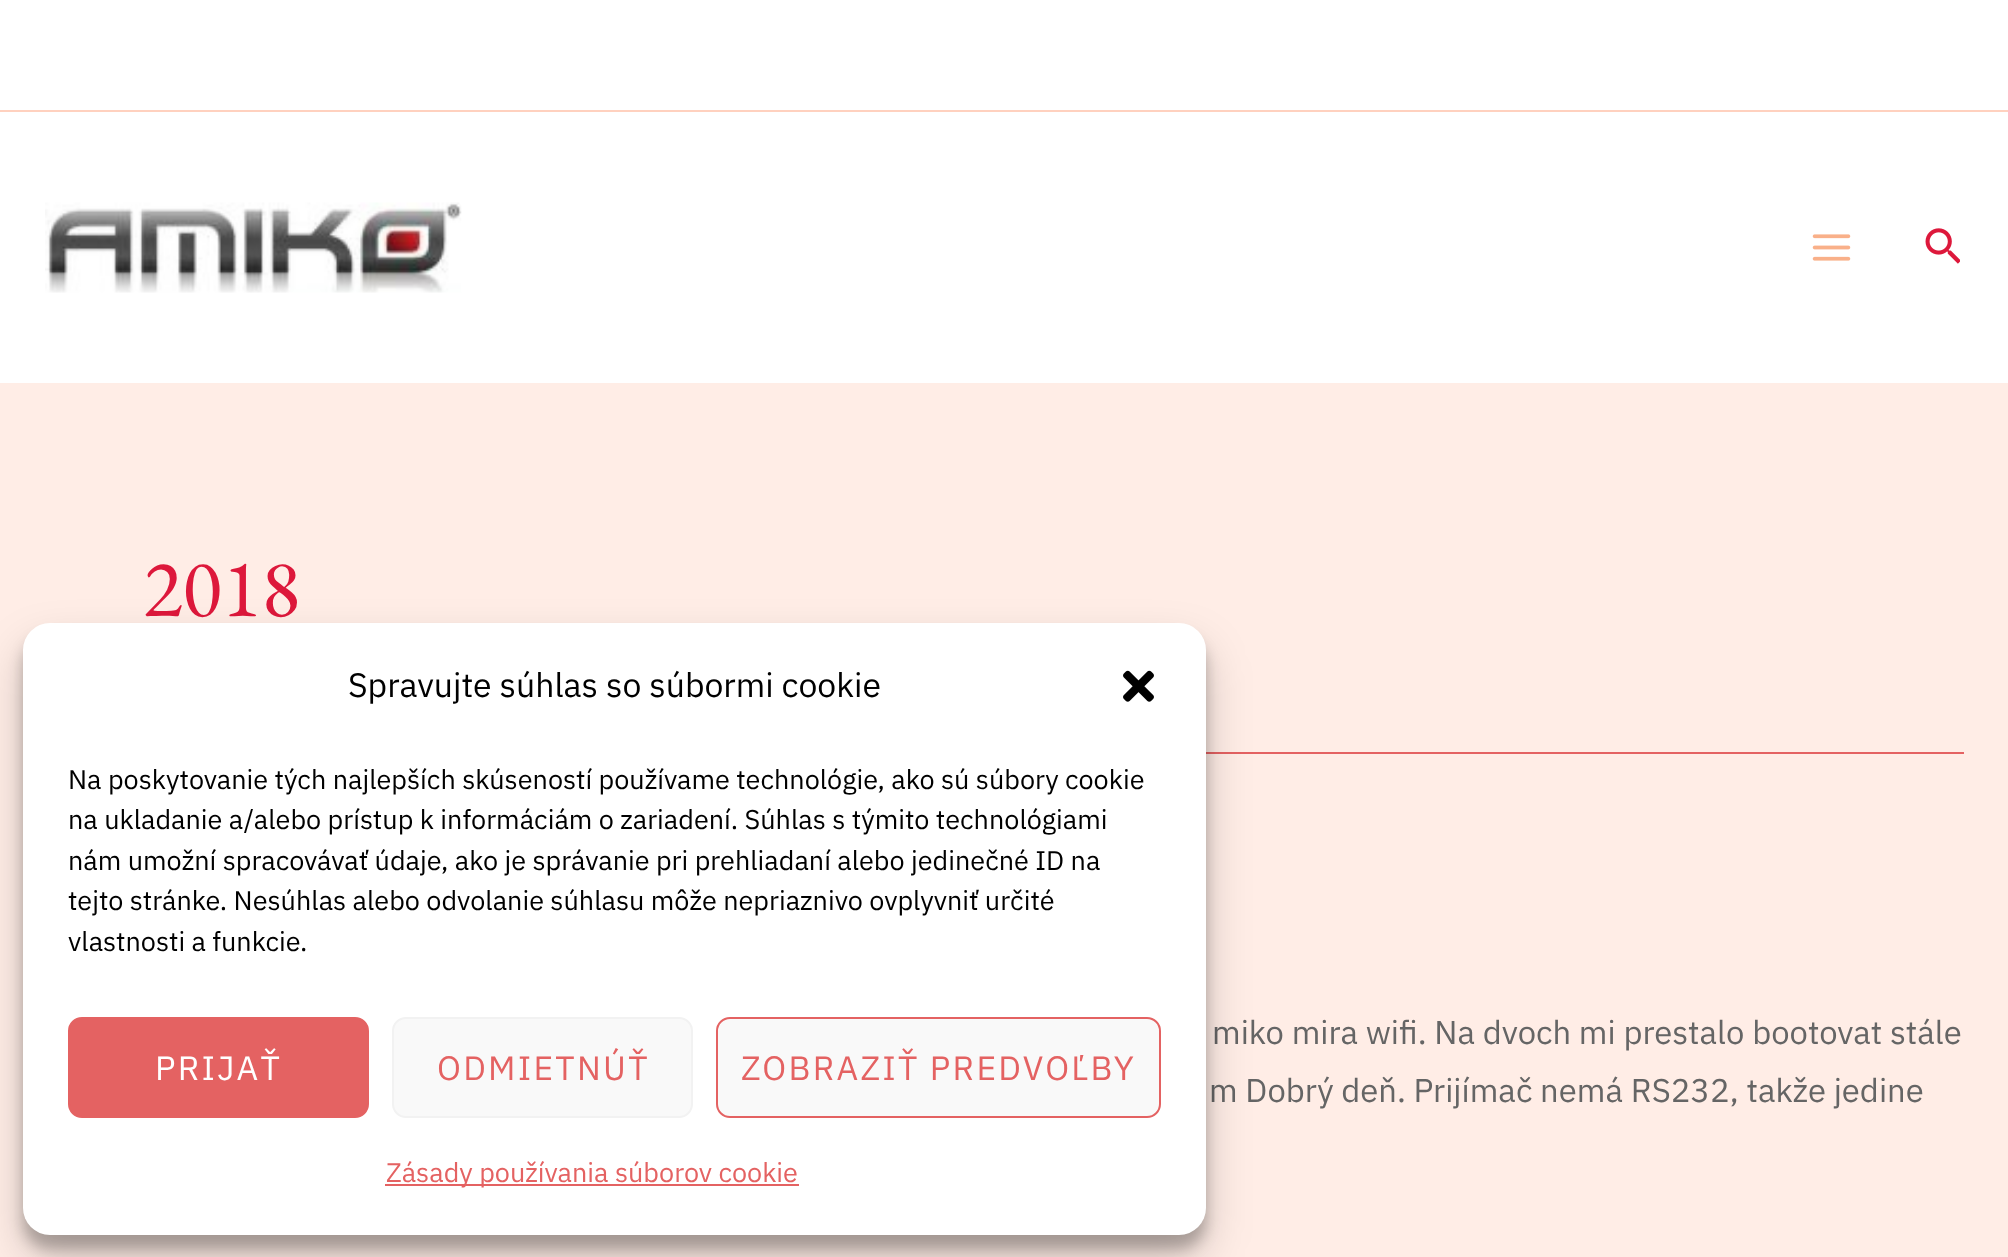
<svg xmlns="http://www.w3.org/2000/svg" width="2008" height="1257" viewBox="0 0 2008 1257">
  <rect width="100%" height="100%" fill="rgb(255,237,230)"/>
  <rect x="0" y="0" width="2008" height="383" fill="rgb(255,255,255)"/>
  <rect x="0" y="110" width="2008" height="2" fill="rgb(255,209,191)"/>
  <image x="45" y="202" width="417" height="91" href="pic1.png"/>
  <image x="1812" y="234" width="39" height="27" href="pic2.png"/>
  <image x="1925" y="228" width="35" height="36" href="pic3.png"/>
  <rect x="1206" y="752" width="758" height="2" fill="rgb(228,98,98)"/>
  <text x="143" y="616" font-family="EB Garamond" font-size="82" fill="rgb(221,24,59)">2018</text>
  <g font-family="IBM Plex Sans" font-size="32.8" fill="rgb(101,101,101)">
    <text x="1212" y="1044">miko mira wifi. Na dvoch mi prestalo bootovat stále</text>
    <text x="1209" y="1102">m Dobrý deň. Prijímač nemá RS232, takže jedine</text>
  </g>
  <rect x="23" y="637" width="1183" height="612" rx="27" fill="rgba(0,0,0,0.23)" filter="blur(7px)"/>
  <rect x="23" y="646" width="1183" height="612" rx="27" fill="rgba(0,0,0,0.19)" filter="blur(22.5px)"/>
  <rect x="23" y="623" width="1183" height="612" rx="27" fill="rgb(255,255,255)"/>
  <text x="348" y="697" font-family="IBM Plex Sans" font-size="33.75" fill="rgb(0,0,0)">Spravujte súhlas so súbormi cookie</text>
  <image x="1123" y="670" width="31" height="32" href="pic4.png"/>
  <g font-family="IBM Plex Sans" font-size="27" fill="rgb(0,0,0)">
    <text>
      <tspan x="68" y="789">Na poskytovanie tých najlepších skúseností používame technológie, ako sú súbory cookie</tspan>
      <tspan x="68" y="829">na ukladanie a/alebo prístup k informáciám o zariadení. Súhlas s týmito technológiami</tspan>
      <tspan x="68" y="870">nám umožní spracovávať údaje, ako je správanie pri prehliadaní alebo jedinečné ID na</tspan>
      <tspan x="68" y="910">tejto stránke. Nesúhlas alebo odvolanie súhlasu môže nepriaznivo ovplyvniť určité</tspan>
      <tspan x="68" y="951">vlastnosti a funkcie.</tspan>
    </text>
  </g>
  <rect x="69" y="1018" width="299" height="99" rx="13" fill="rgb(228,98,98)" stroke="rgb(228,98,98)" stroke-width="2"/>
  <text x="155" y="1080" font-family="IBM Plex Sans" font-size="33.75" letter-spacing="2.25" fill="rgb(255,255,255)">PRIJAŤ</text>
  <rect x="393" y="1018" width="299" height="99" rx="13" fill="rgb(249,249,249)" stroke="rgb(242,242,242)" stroke-width="2"/>
  <text x="437" y="1080" font-family="IBM Plex Sans" font-size="33.75" letter-spacing="2.25" fill="rgb(228,98,98)">ODMIETNÚŤ</text>
  <rect x="717" y="1018" width="443" height="99" rx="13" fill="rgb(249,249,249)" stroke="rgb(228,98,98)" stroke-width="2"/>
  <text x="741" y="1080" font-family="IBM Plex Sans" font-size="33.75" letter-spacing="2.25" fill="rgb(228,98,98)">ZOBRAZIŤ PREDVOĽBY</text>
  <rect x="385" y="1184" width="414" height="2" fill="rgb(228,98,98)"/>
  <text x="386" y="1182" font-family="IBM Plex Sans" font-size="27" fill="rgb(228,98,98)">Zásady používania súborov cookie</text>
</svg>
